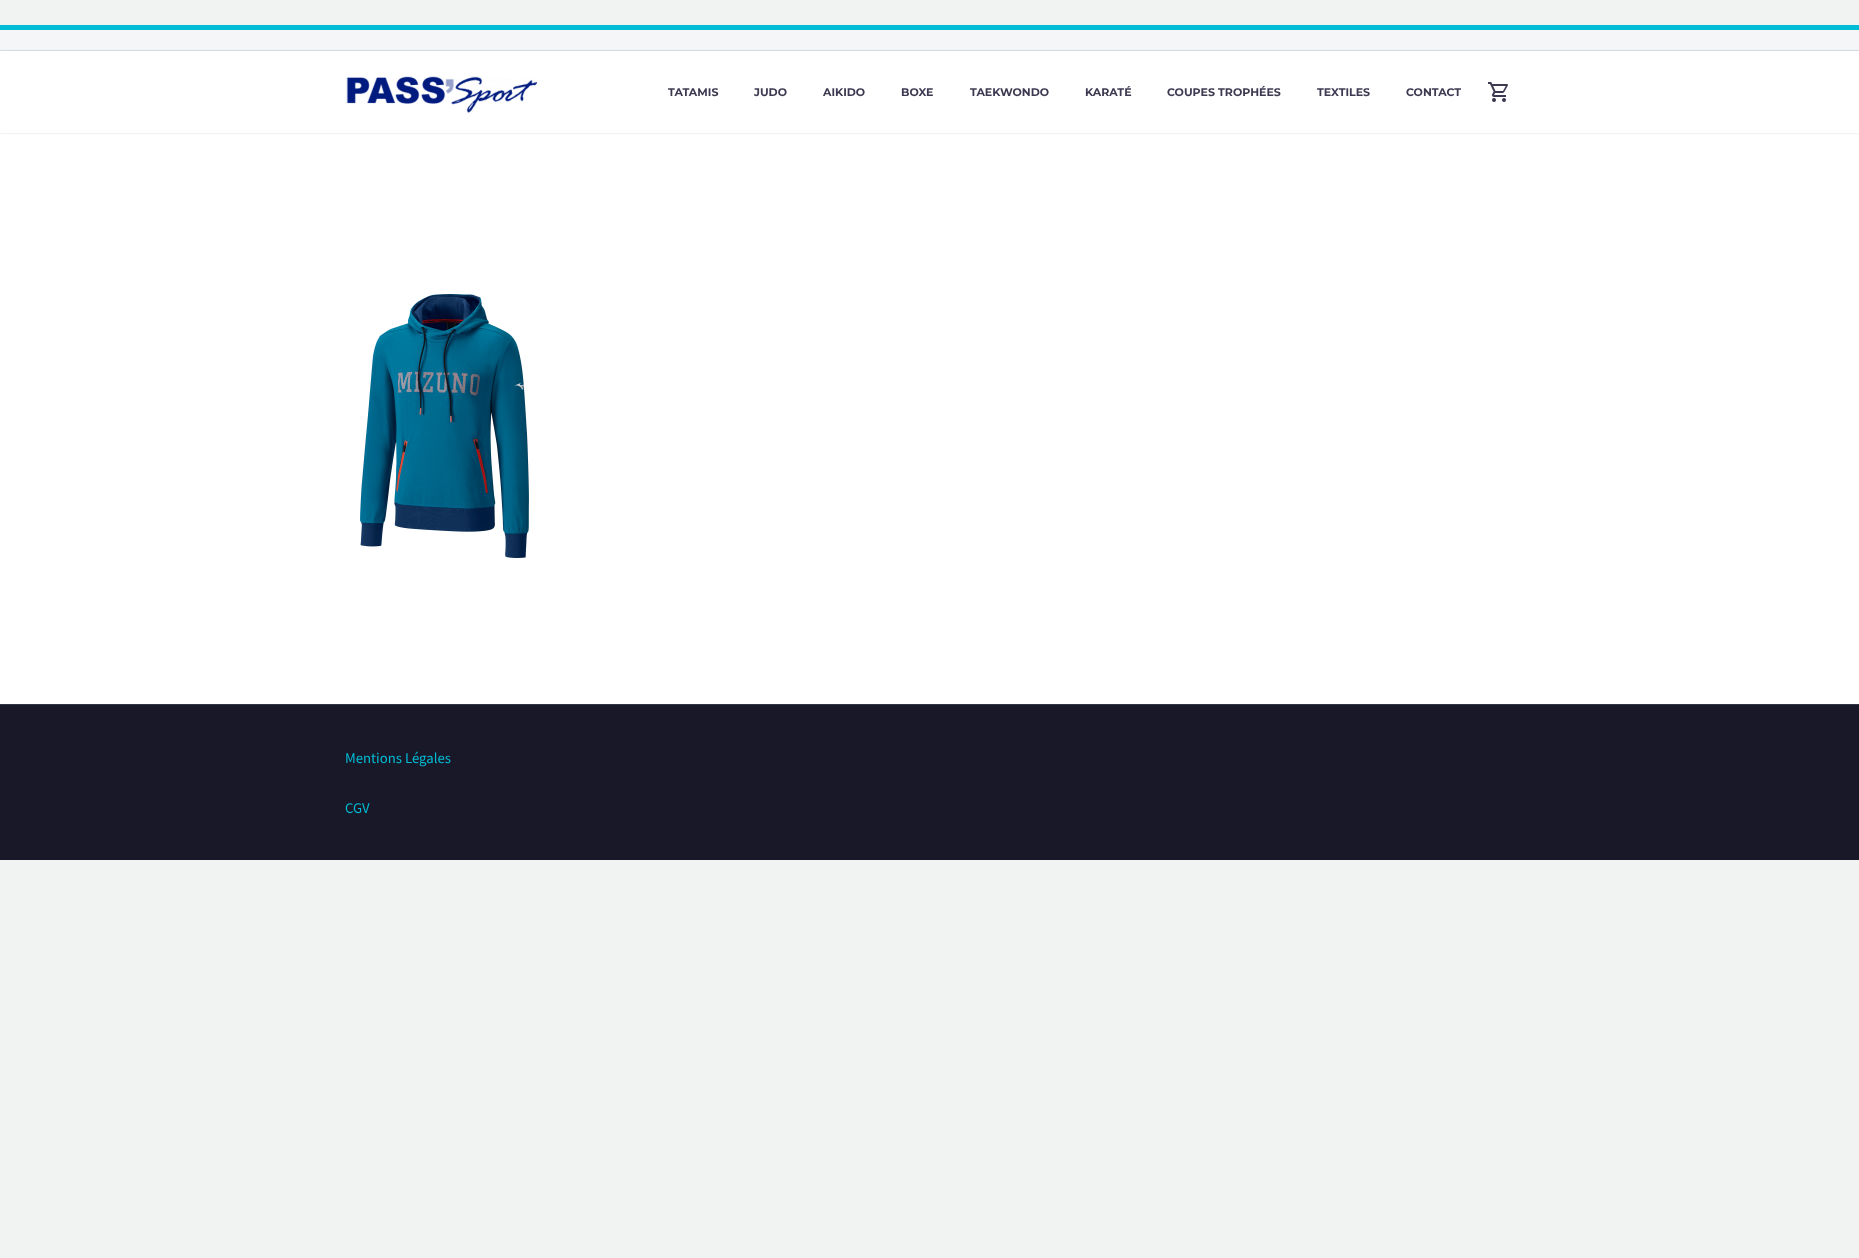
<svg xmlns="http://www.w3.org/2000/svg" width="1859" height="1258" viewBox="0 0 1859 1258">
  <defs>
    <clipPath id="clip1"><path d="M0 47H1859V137H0ZM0 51H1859V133H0Z" clip-rule="evenodd"/></clipPath>
  </defs>
  <rect width="100%" height="100%" fill="rgb(240,243,242)"/>
  <rect x="0" y="25" width="1859" height="5" fill="rgb(0,188,212)"/>
  <rect x="0" y="50" width="1859" height="1" fill="rgb(223,229,232)"/>
  <rect x="0" y="30" width="1859" height="20" fill="rgb(244,246,247)"/>
  <rect x="0" y="51" width="1859" height="653" fill="rgb(255,255,255)"/>
  <g clip-path="url(#clip1)">
    <rect x="0" y="51" width="1859" height="82" fill="rgba(56,69,84,0.2)" filter="blur(1px)"/>
  </g>
  <image x="346" y="76" width="191" height="37" href="pic1.png"/>
  <g font-family="Montserrat" font-size="11" font-weight="bold" fill="rgb(60,57,80)">
    <text x="668" y="96">TATAMIS</text>
    <text x="754" y="96">JUDO</text>
    <text x="823" y="96">AIKIDO</text>
    <text x="901" y="96">BOXE</text>
    <text x="970" y="96">TAEKWONDO</text>
    <text x="1085" y="96">KARATÉ</text>
    <text x="1167" y="96">COUPES TROPHÉES</text>
    <text x="1317" y="96">TEXTILES</text>
    <text x="1406" y="96">CONTACT</text>
  </g>
  <image x="1488" y="82" width="20" height="20" href="pic2.png"/>
  <image x="360" y="294" width="169" height="264" href="pic3.png"/>
  <rect x="0" y="705" width="1859" height="155" fill="rgb(24,24,40)"/>
  <rect x="0" y="704" width="1859" height="1" fill="rgb(49,54,70)"/>
  <g font-family="Source Sans Pro" font-size="14.75" fill="rgb(0,188,212)">
    <text x="345" y="763">Mentions Légales</text>
    <text x="345" y="813">CGV</text>
  </g>
</svg>
